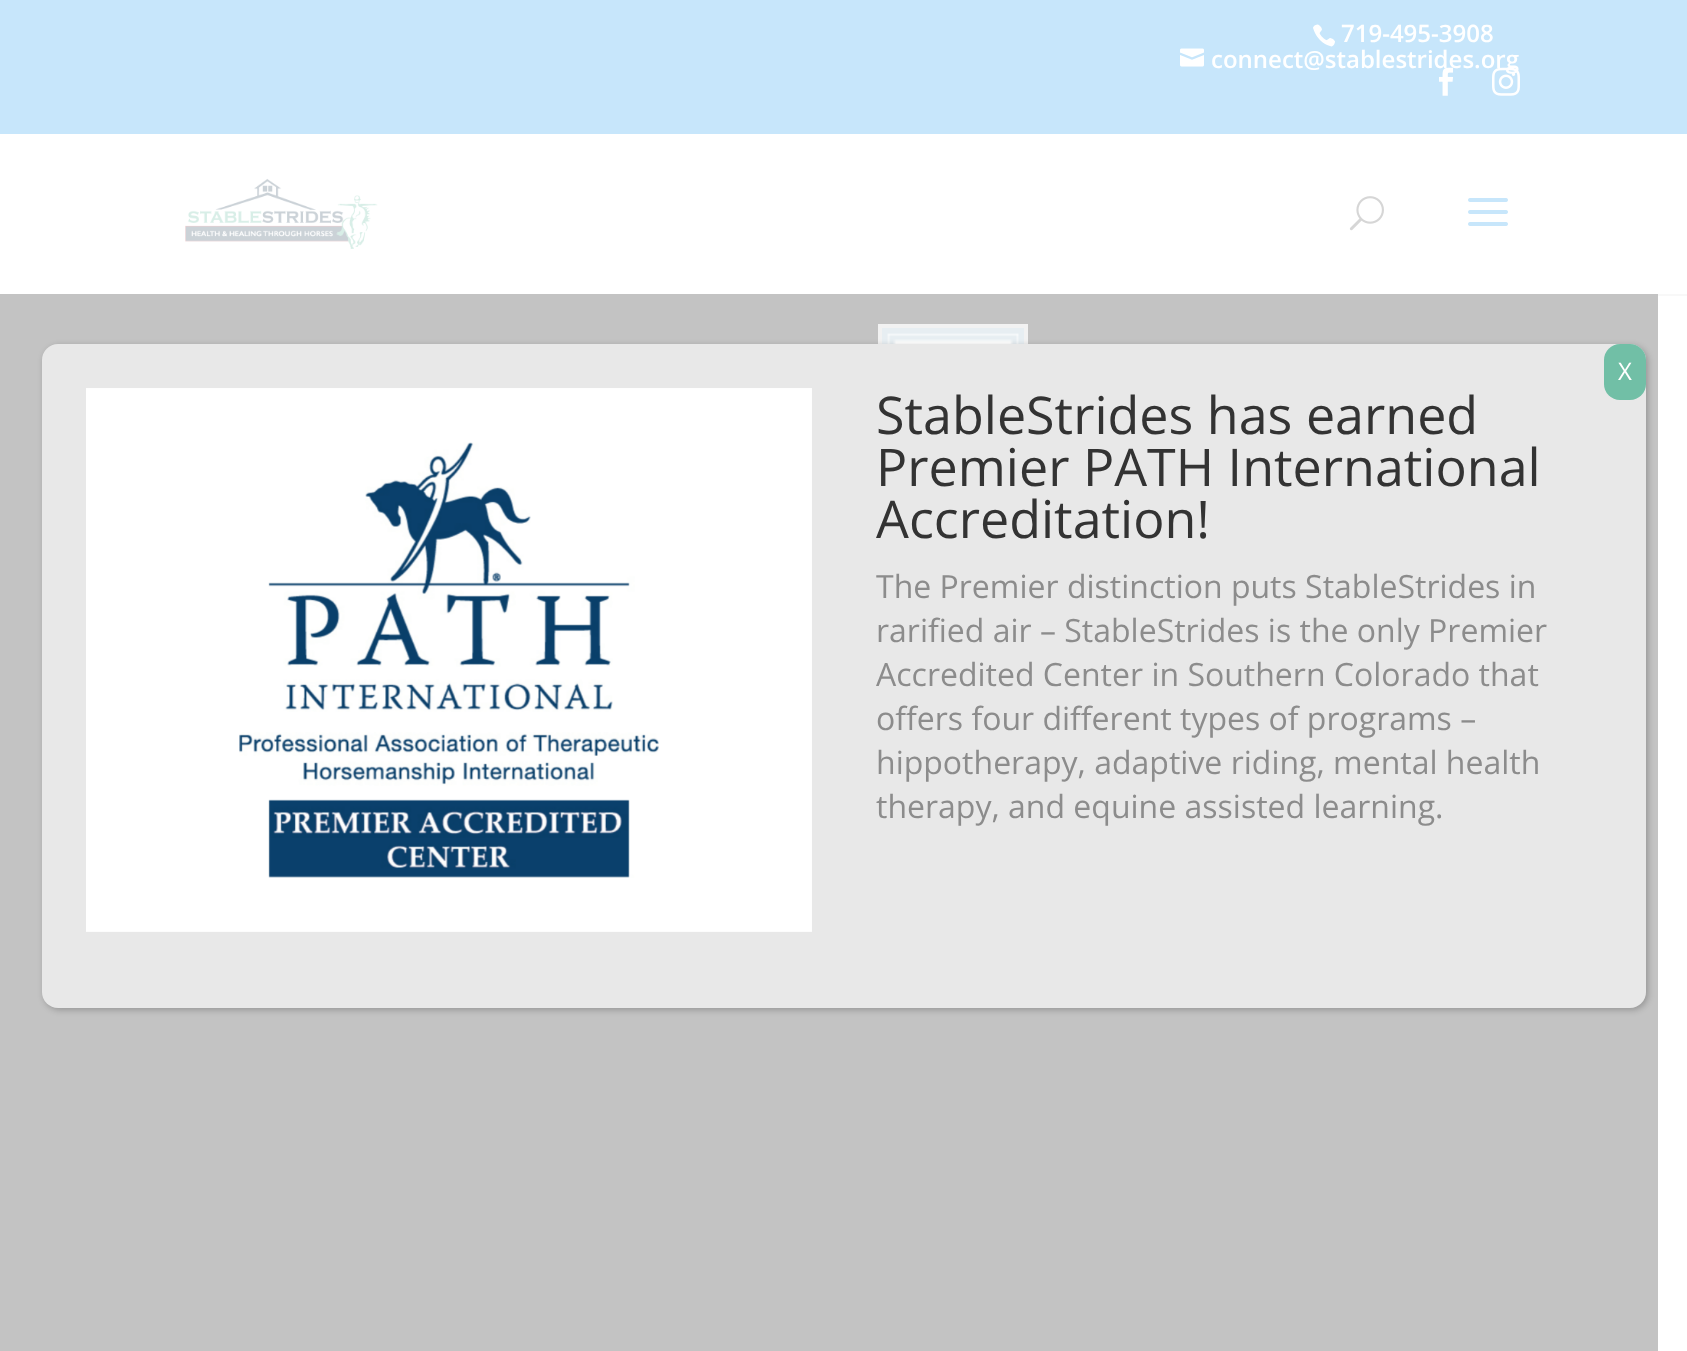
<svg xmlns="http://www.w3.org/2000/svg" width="1687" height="1351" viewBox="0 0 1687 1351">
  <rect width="100%" height="100%" fill="rgb(255,255,255)"/>
  <rect x="0" y="0" width="1687" height="134" fill="rgb(199,230,251)"/>
  <image x="1313" y="24" width="22" height="23" href="pic1.png"/>
  <text x="1341" y="42" font-family="Open Sans" font-size="24" font-weight="600" fill="rgb(255,255,255)">719-495-3908</text>
  <image x="1180" y="48" width="24" height="19" href="pic2.png"/>
  <text x="1211" y="68" font-family="Open Sans" font-size="24" font-weight="600" fill="rgb(255,255,255)">connect@stablestrides.org</text>
  <image x="1439" y="67" width="15" height="29" href="pic3.png"/>
  <image x="1492" y="67" width="28" height="29" href="pic4.png"/>
  <rect x="1658" y="294" width="29" height="2" fill="rgba(186,186,186,0.1)"/>
  <image x="185" y="178" width="193" height="71" href="pic5.png"/>
  <image x="1349" y="196" width="35" height="35" href="pic6.png"/>
  <image x="1468" y="198" width="40" height="28" href="pic7.png"/>
  <rect x="0" y="294" width="1658" height="1057" fill="rgb(195,195,195)"/>
  <rect x="880" y="326" width="146" height="146" fill="none" stroke="rgb(242,242,242)" stroke-width="4"/>
  <image x="882" y="328" width="142" height="16" href="pic8.png"/>
  <rect x="44" y="346" width="1604" height="664" rx="16" fill="rgba(2,2,2,0.23)" filter="blur(3px)"/>
  <rect x="42" y="344" width="1604" height="664" rx="16" fill="rgb(232,232,232)"/>
  <rect x="1604" y="344" width="42" height="56" rx="16" fill="rgb(113,191,166)"/>
  <text x="1618" y="380" font-family="Open Sans" font-size="24" fill="rgb(255,255,255)">X</text>
  <image x="86" y="388" width="726" height="544" href="pic9.png"/>
  <g font-family="Open Sans" font-size="52" fill="rgb(51,51,51)">
    <text>
      <tspan x="876" y="434">StableStrides has earned</tspan>
      <tspan x="876" y="486">Premier PATH International</tspan>
      <tspan x="876" y="538">Accreditation!</tspan>
    </text>
  </g>
  <g font-family="Open Sans" font-size="32" fill="rgb(140,140,140)">
    <text>
      <tspan x="876" y="598">The Premier distinction puts StableStrides in</tspan>
      <tspan x="876" y="642">rarified air – StableStrides is the only Premier</tspan>
      <tspan x="876" y="686">Accredited Center in Southern Colorado that</tspan>
      <tspan x="876" y="730">offers four different types of programs –</tspan>
      <tspan x="876" y="774">hippotherapy, adaptive riding, mental health</tspan>
      <tspan x="876" y="818">therapy, and equine assisted learning.</tspan>
    </text>
  </g>
</svg>
